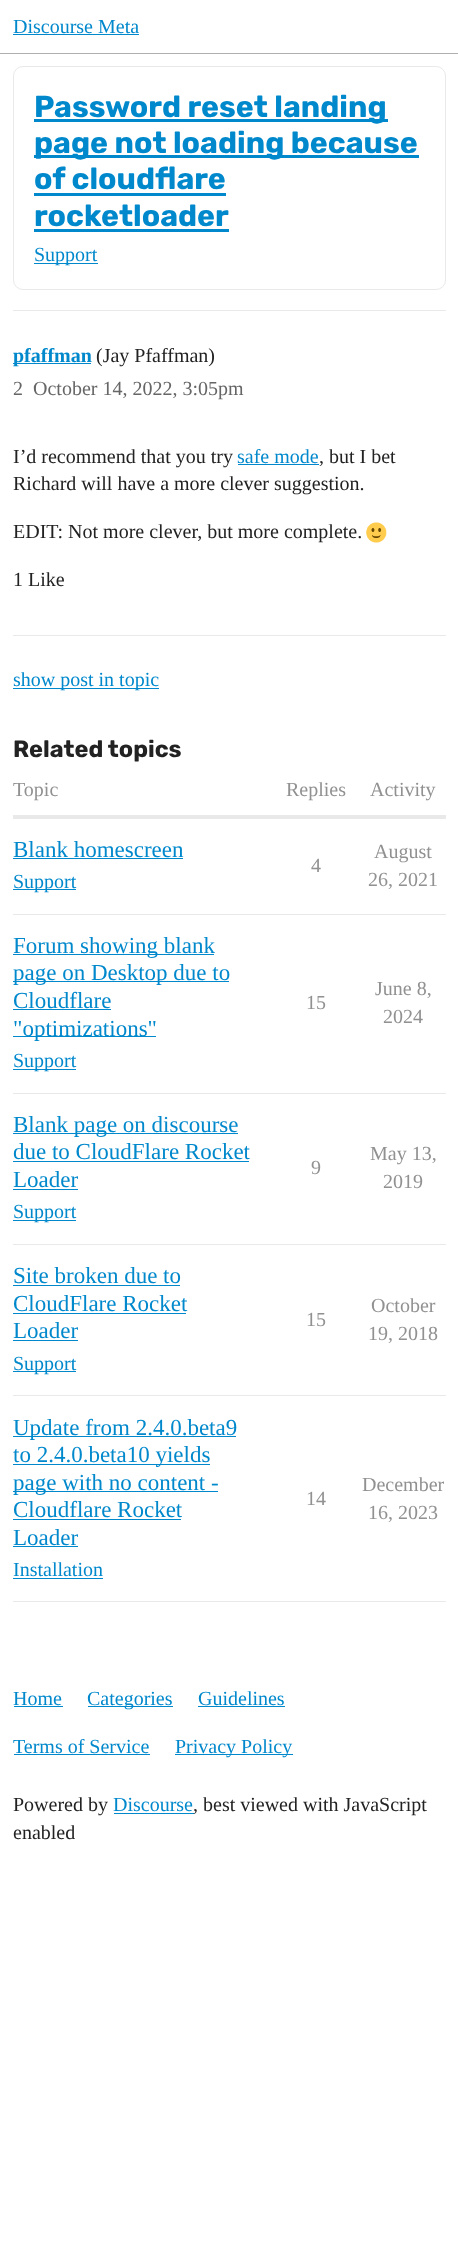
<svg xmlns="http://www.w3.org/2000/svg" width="458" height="2268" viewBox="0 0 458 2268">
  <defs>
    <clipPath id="clip1"><rect x="13" y="776" width="433" height="827"/></clipPath>
  </defs>
  <rect width="100%" height="100%" fill="rgb(255,255,255)"/>
  <rect x="0" y="53" width="458" height="1" fill="rgb(175,175,175)"/>
  <text x="13" y="33" font-family="Liberation Serif" font-size="20" fill="rgb(0,136,204)">Discourse Meta</text>
  <rect x="13" y="34" width="126" height="1" fill="rgb(0,136,204)"/>
  <rect x="13.5" y="66.5" width="432" height="223" rx="9.5" fill="none" stroke="rgb(233,233,233)"/>
  <rect x="34" y="119" width="354" height="3" fill="rgb(0,136,204)"/>
  <text x="34" y="117" font-family="Rubik" font-size="30.25" font-weight="bold" fill="rgb(0,136,204)">Password reset landing</text>
  <rect x="34" y="155" width="385" height="3" fill="rgb(0,136,204)"/>
  <g font-family="Rubik" font-size="30.25" font-weight="bold" fill="rgb(0,136,204)">
    <text>
      <tspan x="34" y="153">page not loading because</tspan>
      <tspan x="34" y="189">of cloudflare</tspan>
    </text>
  </g>
  <rect x="34" y="193" width="192" height="3" fill="rgb(0,136,204)"/>
  <text x="34" y="226" font-family="Rubik" font-size="30.25" font-weight="bold" fill="rgb(0,136,204)">rocketloader</text>
  <rect x="34" y="229" width="195" height="3" fill="rgb(0,136,204)"/>
  <rect x="34" y="263" width="64" height="1" fill="rgb(0,136,204)"/>
  <text x="34" y="261" font-family="Liberation Serif" font-size="20" fill="rgb(0,136,204)">Support</text>
  <rect x="13" y="310" width="433" height="1" fill="rgb(233,233,233)"/>
  <rect x="13" y="363" width="78" height="1" fill="rgb(0,136,204)"/>
  <text x="13" y="362" font-family="Liberation Serif" font-size="20" font-weight="bold" fill="rgb(0,136,204)">pfaffman</text>
  <text x="96" y="362" font-family="Liberation Serif" font-size="20" fill="rgb(34,34,34)">(Jay Pfaffman)</text>
  <g font-family="Liberation Serif" font-size="20" fill="rgb(102,102,102)">
    <text x="13" y="395">2</text>
    <text x="33" y="395">October 14, 2022, 3:05pm</text>
  </g>
  <text x="13" y="463" font-family="Liberation Serif" font-size="20" fill="rgb(34,34,34)">I’d recommend that you try</text>
  <text x="237" y="463" font-family="Liberation Serif" font-size="20" fill="rgb(0,136,204)">safe mode</text>
  <rect x="238" y="464" width="81" height="1" fill="rgb(0,136,204)"/>
  <g font-family="Liberation Serif" font-size="20" fill="rgb(34,34,34)">
    <text x="319" y="463">, but I bet</text>
    <text x="13" y="490">Richard will have a more clever suggestion.</text>
    <text x="13" y="538">EDIT: Not more clever, but more complete.</text>
  </g>
  <image x="366" y="522" width="21" height="21" href="pic1.png"/>
  <text x="13" y="586" font-family="Liberation Serif" font-size="20" fill="rgb(34,34,34)">1 Like</text>
  <rect x="13" y="635" width="433" height="1" fill="rgb(233,233,233)"/>
  <rect x="13" y="688" width="146" height="1" fill="rgb(0,136,204)"/>
  <text x="13" y="686" font-family="Liberation Serif" font-size="20" fill="rgb(0,136,204)">show post in topic</text>
  <text x="13" y="757" font-family="Rubik" font-size="23.5" font-weight="bold" fill="rgb(34,34,34)">Related topics</text>
  <g clip-path="url(#clip1)">
    <text x="13" y="796" font-family="Liberation Serif" font-size="20" fill="rgb(145,145,145)">Topic</text>
  </g>
  <g font-family="Liberation Serif" font-size="20" fill="rgb(145,145,145)">
    <text x="286" y="796">Replies</text>
    <text x="370" y="796">Activity</text>
  </g>
  <rect x="13" y="815" width="433" height="4" fill="rgb(233,233,233)"/>
  <rect x="13" y="914" width="433" height="1" fill="rgb(233,233,233)"/>
  <text x="13" y="857" font-family="Liberation Serif" font-size="23" fill="rgb(0,136,204)">Blank homescreen</text>
  <rect x="13" y="858" width="170" height="1" fill="rgb(0,136,204)"/>
  <rect x="13" y="889" width="63" height="1" fill="rgb(0,136,204)"/>
  <text x="13" y="888" font-family="Liberation Serif" font-size="20" fill="rgb(0,136,204)">Support</text>
  <g font-family="Liberation Serif" font-size="20" fill="rgb(145,145,145)">
    <text x="311" y="872">4</text>
    <text x="374" y="858">August</text>
    <text x="368" y="886">26, 2021</text>
  </g>
  <rect x="13" y="1093" width="433" height="1" fill="rgb(233,233,233)"/>
  <rect x="13" y="954" width="201" height="1" fill="rgb(0,136,204)"/>
  <text x="13" y="953" font-family="Liberation Serif" font-size="23" fill="rgb(0,136,204)">Forum showing blank</text>
  <rect x="13" y="981" width="216" height="1" fill="rgb(0,136,204)"/>
  <g font-family="Liberation Serif" font-size="23" fill="rgb(0,136,204)">
    <text>
      <tspan x="13" y="980">page on Desktop due to</tspan>
      <tspan x="13" y="1008">Cloudflare</tspan>
    </text>
  </g>
  <rect x="13" y="1009" width="98" height="1" fill="rgb(0,136,204)"/>
  <rect x="13" y="1036" width="143" height="1" fill="rgb(0,136,204)"/>
  <text x="13" y="1036" font-family="Liberation Serif" font-size="23" fill="rgb(0,136,204)">"optimizations"</text>
  <rect x="13" y="1069" width="63" height="1" fill="rgb(0,136,204)"/>
  <text x="13" y="1067" font-family="Liberation Serif" font-size="20" fill="rgb(0,136,204)">Support</text>
  <g font-family="Liberation Serif" font-size="20" fill="rgb(145,145,145)">
    <text x="306" y="1009">15</text>
    <text x="375" y="995">June 8,</text>
    <text x="383" y="1023">2024</text>
  </g>
  <rect x="13" y="1244" width="433" height="1" fill="rgb(233,233,233)"/>
  <rect x="13" y="1133" width="225" height="1" fill="rgb(0,136,204)"/>
  <g font-family="Liberation Serif" font-size="23" fill="rgb(0,136,204)">
    <text>
      <tspan x="13" y="1132">Blank page on discourse</tspan>
      <tspan x="13" y="1159">due to CloudFlare Rocket</tspan>
    </text>
  </g>
  <rect x="13" y="1161" width="236" height="1" fill="rgb(0,136,204)"/>
  <text x="13" y="1187" font-family="Liberation Serif" font-size="23" fill="rgb(0,136,204)">Loader</text>
  <rect x="13" y="1189" width="65" height="1" fill="rgb(0,136,204)"/>
  <rect x="13" y="1220" width="63" height="1" fill="rgb(0,136,204)"/>
  <text x="13" y="1218" font-family="Liberation Serif" font-size="20" fill="rgb(0,136,204)">Support</text>
  <g font-family="Liberation Serif" font-size="20" fill="rgb(145,145,145)">
    <text x="311" y="1174">9</text>
    <text x="370" y="1160">May 13,</text>
    <text x="383" y="1188">2019</text>
  </g>
  <rect x="13" y="1395" width="433" height="1" fill="rgb(233,233,233)"/>
  <text x="13" y="1283" font-family="Liberation Serif" font-size="23" fill="rgb(0,136,204)">Site broken due to</text>
  <rect x="13" y="1285" width="167" height="1" fill="rgb(0,136,204)"/>
  <text x="13" y="1311" font-family="Liberation Serif" font-size="23" fill="rgb(0,136,204)">CloudFlare Rocket</text>
  <rect x="13" y="1313" width="173" height="1" fill="rgb(0,136,204)"/>
  <text x="13" y="1338" font-family="Liberation Serif" font-size="23" fill="rgb(0,136,204)">Loader</text>
  <rect x="13" y="1340" width="65" height="1" fill="rgb(0,136,204)"/>
  <rect x="13" y="1371" width="63" height="1" fill="rgb(0,136,204)"/>
  <text x="13" y="1370" font-family="Liberation Serif" font-size="20" fill="rgb(0,136,204)">Support</text>
  <g font-family="Liberation Serif" font-size="20" fill="rgb(145,145,145)">
    <text x="306" y="1326">15</text>
    <text x="371" y="1312">October</text>
    <text x="368" y="1340">19, 2018</text>
  </g>
  <rect x="13" y="1601" width="433" height="1" fill="rgb(233,233,233)"/>
  <rect x="13" y="1436" width="223" height="1" fill="rgb(0,136,204)"/>
  <text x="13" y="1435" font-family="Liberation Serif" font-size="23" fill="rgb(0,136,204)">Update from 2.4.0.beta9</text>
  <rect x="13" y="1464" width="197" height="1" fill="rgb(0,136,204)"/>
  <text x="13" y="1462" font-family="Liberation Serif" font-size="23" fill="rgb(0,136,204)">to 2.4.0.beta10 yields</text>
  <rect x="13" y="1491" width="205" height="1" fill="rgb(0,136,204)"/>
  <g font-family="Liberation Serif" font-size="23" fill="rgb(0,136,204)">
    <text>
      <tspan x="13" y="1490">page with no content -</tspan>
      <tspan x="13" y="1517">Cloudflare Rocket</tspan>
    </text>
  </g>
  <rect x="13" y="1519" width="168" height="1" fill="rgb(0,136,204)"/>
  <text x="13" y="1545" font-family="Liberation Serif" font-size="23" fill="rgb(0,136,204)">Loader</text>
  <rect x="13" y="1546" width="65" height="1" fill="rgb(0,136,204)"/>
  <text x="13" y="1576" font-family="Liberation Serif" font-size="20" fill="rgb(0,136,204)">Installation</text>
  <rect x="13" y="1578" width="90" height="1" fill="rgb(0,136,204)"/>
  <g font-family="Liberation Serif" font-size="20" fill="rgb(145,145,145)">
    <text x="306" y="1505">14</text>
    <text x="362" y="1491">December</text>
    <text x="368" y="1519">16, 2023</text>
  </g>
  <text x="13" y="1705" font-family="Liberation Serif" font-size="20" fill="rgb(0,136,204)">Home</text>
  <rect x="14" y="1706" width="49" height="1" fill="rgb(0,136,204)"/>
  <rect x="88" y="1706" width="85" height="1" fill="rgb(0,136,204)"/>
  <g font-family="Liberation Serif" font-size="20" fill="rgb(0,136,204)">
    <text x="87" y="1705">Categories</text>
    <text x="198" y="1705">Guidelines</text>
  </g>
  <rect x="198" y="1706" width="87" height="1" fill="rgb(0,136,204)"/>
  <text x="13" y="1753" font-family="Liberation Serif" font-size="20" fill="rgb(0,136,204)">Terms of Service</text>
  <rect x="14" y="1754" width="136" height="1" fill="rgb(0,136,204)"/>
  <rect x="175" y="1754" width="118" height="1" fill="rgb(0,136,204)"/>
  <text x="175" y="1753" font-family="Liberation Serif" font-size="20" fill="rgb(0,136,204)">Privacy Policy</text>
  <text x="13" y="1811" font-family="Liberation Serif" font-size="20" fill="rgb(34,34,34)">Powered by</text>
  <text x="113" y="1811" font-family="Liberation Serif" font-size="20" fill="rgb(0,136,204)">Discourse</text>
  <rect x="114" y="1813" width="80" height="1" fill="rgb(0,136,204)"/>
  <g font-family="Liberation Serif" font-size="20" fill="rgb(34,34,34)">
    <text x="193" y="1811">, best viewed with JavaScript</text>
    <text x="13" y="1839">enabled</text>
  </g>
</svg>
